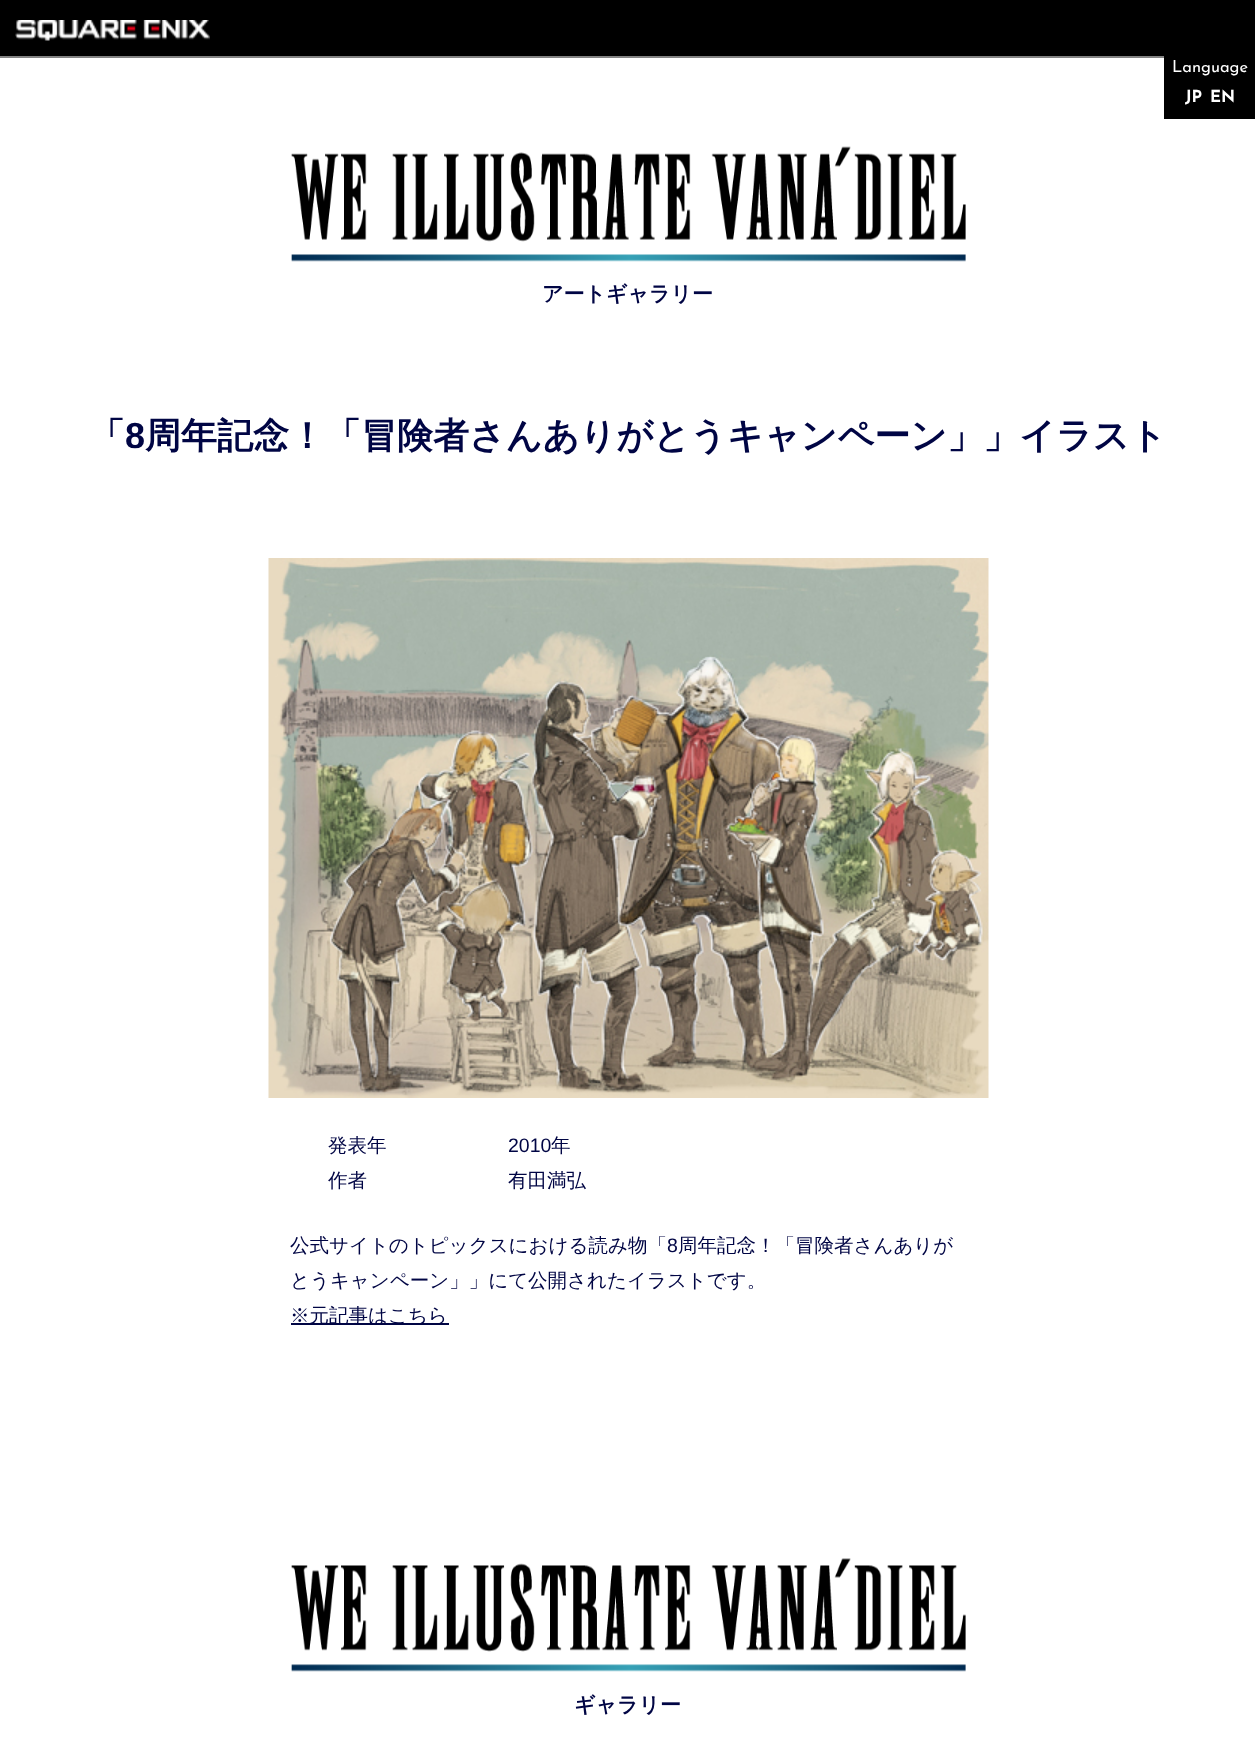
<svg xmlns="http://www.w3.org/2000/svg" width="1255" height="1741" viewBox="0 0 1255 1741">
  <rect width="100%" height="100%" fill="rgb(255,255,255)"/>
  <rect x="0" y="0" width="1255" height="56" fill="rgb(0,0,0)"/>
  <rect x="0" y="56" width="1164" height="2" fill="rgb(131,131,131)"/>
  <image x="15" y="20" width="195" height="21" href="pic1.png"/>
  <rect x="1164" y="56" width="91" height="63" fill="rgb(0,0,0)"/>
  <text x="1172" y="72" font-family="Josefin Sans" font-size="16.5" fill="rgb(255,255,255)">Language</text>
  <g font-family="Josefin Sans" font-size="16.5" font-weight="bold" fill="rgb(255,255,255)">
    <text x="1185" y="102">JP</text>
    <text x="1210" y="102">EN</text>
  </g>
  <image x="291" y="146" width="675" height="116" href="pic2.png"/>
  <text x="542" y="301" font-family="WenQuanYi Zen Hei" font-size="21" font-weight="bold" fill="rgb(0,5,68)">アートギャラリー</text>
  <text x="89" y="448" font-family="WenQuanYi Zen Hei" font-size="36" font-weight="bold" fill="rgb(0,5,68)">「</text>
  <text x="125" y="448" font-family="Liberation Sans" font-size="36" font-weight="bold" fill="rgb(0,5,68)">8</text>
  <text x="145" y="448" font-family="WenQuanYi Zen Hei" font-size="36" font-weight="bold" fill="rgb(0,5,68)">周年記念！「冒険者さんありがとうキャンペーン」」イラスト</text>
  <image x="268" y="558" width="721" height="540" href="pic3.png"/>
  <text x="328" y="1152" font-family="WenQuanYi Zen Hei" font-size="19.5" font-weight="500" fill="rgb(0,5,68)">発表年</text>
  <text x="508" y="1152" font-family="Liberation Sans" font-size="19.5" fill="rgb(0,5,68)">2010</text>
  <g font-family="WenQuanYi Zen Hei" font-size="19.5" font-weight="500" fill="rgb(0,5,68)">
    <text x="551" y="1152">年</text>
    <text x="328" y="1187">作者</text>
    <text x="508" y="1187">有田満弘</text>
    <text x="290" y="1252">公式サイトのトピックスにおける読み物「</text>
  </g>
  <text x="667" y="1252" font-family="Liberation Sans" font-size="19.5" fill="rgb(0,5,68)">8</text>
  <g font-family="WenQuanYi Zen Hei" font-size="19.5" font-weight="500" fill="rgb(0,5,68)">
    <text x="678" y="1252">周年記念！「冒険者さんありが</text>
    <text x="290" y="1287">とうキャンペーン」」にて公開されたイラストです。</text>
  </g>
  <rect x="291" y="1323" width="158" height="2" fill="rgb(0,5,68)"/>
  <text x="290" y="1322" font-family="WenQuanYi Zen Hei" font-size="19.5" font-weight="500" fill="rgb(0,5,68)">※元記事はこちら</text>
  <image x="291" y="1558" width="675" height="114" href="pic4.png"/>
  <text x="574" y="1712" font-family="WenQuanYi Zen Hei" font-size="21" font-weight="bold" fill="rgb(0,5,68)">ギャラリー</text>
</svg>
